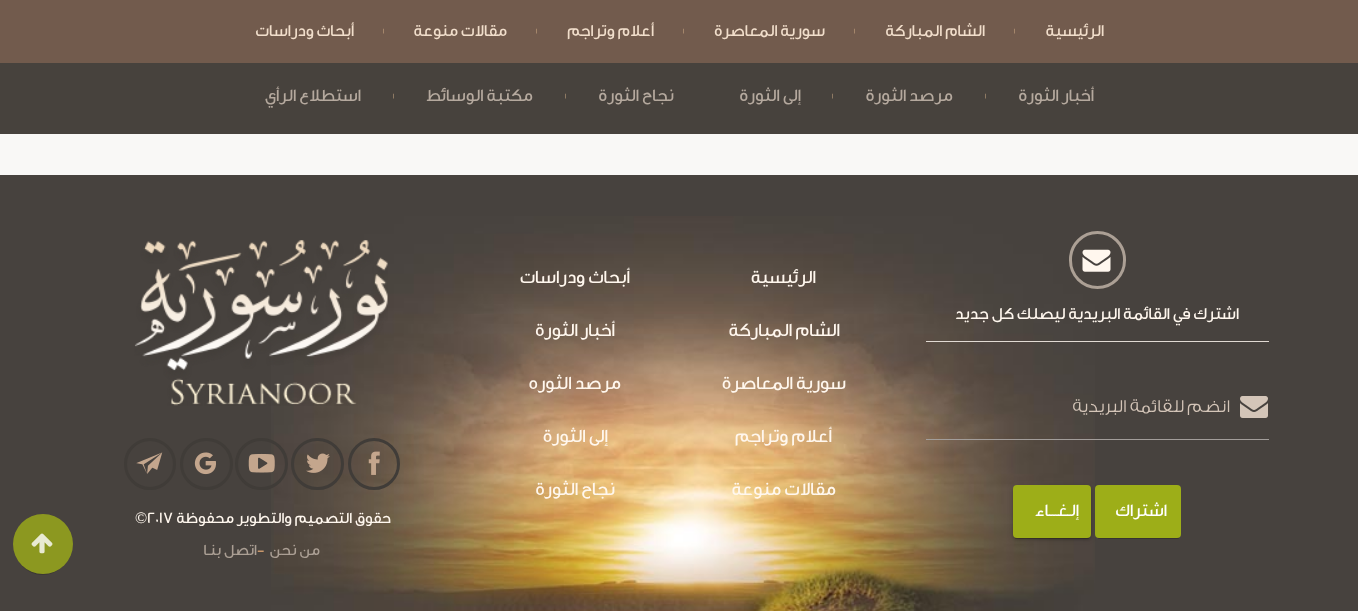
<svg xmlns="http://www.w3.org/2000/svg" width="1358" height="611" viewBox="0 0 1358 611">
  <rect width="100%" height="100%" fill="rgb(249,248,246)"/>
  <rect x="0" y="0" width="1358" height="63" fill="rgb(114,91,77)"/>
  <text x="1104" y="36" font-family="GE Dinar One" font-size="17" font-weight="500" direction="rtl" fill="rgb(241,222,203)">الرئيسية</text>
  <text x="1014" y="33" font-family="GE Dinar One" font-size="6" font-weight="500" fill="rgb(222,182,142)">|</text>
  <text x="985" y="36" font-family="GE Dinar One" font-size="17" font-weight="500" direction="rtl" fill="rgb(241,222,203)">الشام المباركة</text>
  <text x="854" y="33" font-family="GE Dinar One" font-size="6" font-weight="500" fill="rgb(222,182,142)">|</text>
  <text x="825" y="36" font-family="GE Dinar One" font-size="17" font-weight="500" direction="rtl" fill="rgb(241,222,203)">سورية المعاصرة</text>
  <text x="683" y="33" font-family="GE Dinar One" font-size="6" font-weight="500" fill="rgb(222,182,142)">|</text>
  <text x="654" y="36" font-family="GE Dinar One" font-size="17" font-weight="500" direction="rtl" fill="rgb(241,222,203)">أعلام وتراجم</text>
  <text x="536" y="33" font-family="GE Dinar One" font-size="6" font-weight="500" fill="rgb(222,182,142)">|</text>
  <text x="507" y="36" font-family="GE Dinar One" font-size="17" font-weight="500" direction="rtl" fill="rgb(241,222,203)">مقالات منوعة</text>
  <text x="383" y="33" font-family="GE Dinar One" font-size="6" font-weight="500" fill="rgb(222,182,142)">|</text>
  <text x="354" y="36" font-family="GE Dinar One" font-size="17" font-weight="500" direction="rtl" fill="rgb(241,222,203)">أبحاث ودراسات</text>
  <rect x="0" y="63" width="1358" height="71" fill="rgb(71,66,61)"/>
  <text x="1094" y="101" font-family="GE Dinar One" font-size="18" font-weight="500" direction="rtl" fill="rgb(181,169,158)">أخبار الثورة</text>
  <text x="985" y="98" font-family="GE Dinar One" font-size="6" font-weight="500" fill="rgb(222,182,142)">|</text>
  <text x="953" y="101" font-family="GE Dinar One" font-size="18" font-weight="500" direction="rtl" fill="rgb(181,169,158)">مرصد الثورة</text>
  <text x="832" y="98" font-family="GE Dinar One" font-size="6" font-weight="500" fill="rgb(222,182,142)">|</text>
  <g font-family="GE Dinar One" font-size="18" font-weight="500" direction="rtl" fill="rgb(181,169,158)">
    <text x="801" y="101">إلى الثورة</text>
    <text x="674" y="101">نجاح الثورة</text>
  </g>
  <text x="565" y="98" font-family="GE Dinar One" font-size="6" font-weight="500" fill="rgb(222,182,142)">|</text>
  <text x="533" y="101" font-family="GE Dinar One" font-size="18" font-weight="500" direction="rtl" fill="rgb(181,169,158)">مكتبة الوسائط</text>
  <text x="393" y="98" font-family="GE Dinar One" font-size="6" font-weight="500" fill="rgb(222,182,142)">|</text>
  <text x="361" y="101" font-family="GE Dinar One" font-size="18" font-weight="500" direction="rtl" fill="rgb(181,169,158)">استطلاع الرأي</text>
  <rect x="0" y="175" width="1358" height="436" fill="rgb(71,66,62)"/>
  <image x="271" y="216" width="824" height="395" href="pic1.png"/>
  <rect x="1070.5" y="232.5" width="54" height="55" rx="27" fill="none" stroke="rgb(172,160,149)" stroke-width="3"/>
  <image x="1082" y="249" width="29" height="23" href="pic2.png"/>
  <text x="1239" y="319" font-family="GE Dinar One" font-size="17" font-weight="500" direction="rtl" fill="rgb(255,247,238)">اشترك في القائمة البريدية ليصلك كل جديد</text>
  <rect x="926" y="341" width="343" height="1" fill="rgb(225,218,211)"/>
  <image x="1240" y="396" width="28" height="22" href="pic3.png"/>
  <text x="1230" y="412" font-family="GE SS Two" font-size="18" font-weight="300" direction="rtl" fill="rgb(212,197,184)">انضم للقائمة البريدية</text>
  <rect x="926" y="439" width="343" height="1" fill="rgb(162,157,154)"/>
  <rect x="1098" y="491" width="81" height="48" rx="1" fill="rgba(0,0,0,0.2)" filter="blur(0.5px)"/>
  <rect x="1095" y="485" width="86" height="53" rx="4" fill="rgb(157,174,24)"/>
  <text x="1167" y="516" font-family="GE Dinar One" font-size="18" font-weight="500" letter-spacing="0.6" direction="rtl" fill="rgb(255,255,255)">اشتراك</text>
  <rect x="1015" y="491" width="74" height="48" rx="1" fill="rgba(0,0,0,0.2)" filter="blur(0.5px)"/>
  <rect x="1013" y="486" width="78" height="53" rx="4" fill="rgba(0,0,0,0.12)" filter="blur(3px)"/>
  <rect x="1013" y="488" width="78" height="52" rx="4" fill="rgba(0,0,0,0.14)" filter="blur(1px)"/>
  <rect x="1013" y="485" width="78" height="53" rx="4" fill="rgb(157,174,24)"/>
  <text x="1079" y="516" font-family="GE Dinar One" font-size="18" font-weight="500" letter-spacing="0.6" direction="rtl" fill="rgb(255,255,255)">إلـغـــاء</text>
  <g font-family="GE Dinar One" font-size="19" font-weight="500" direction="rtl" fill="rgb(255,247,238)">
    <text x="816" y="283">الرئيسية</text>
    <text x="840" y="336">الشام المباركة</text>
    <text x="846" y="389">سورية المعاصرة</text>
    <text x="832" y="442">أعلام وتراجم</text>
    <text x="836" y="495">مقالات منوعة</text>
    <text x="630" y="283">أبحاث ودراسات</text>
    <text x="615" y="336">أخبار الثورة</text>
    <text x="621" y="389">مرصد الثوره</text>
    <text x="608" y="442">إلى الثورة</text>
    <text x="615" y="495">نجاح الثورة</text>
  </g>
  <image x="134" y="240" width="254" height="166" href="pic4.png"/>
  <circle cx="374" cy="464" r="24.5" fill="none" stroke="rgb(64,60,56)" stroke-width="3"/>
  <image x="368" y="451" width="12" height="24" href="pic5.png"/>
  <rect x="292.5" y="439.5" width="50" height="49" rx="24.5" fill="none" stroke="rgb(64,60,56)" stroke-width="3"/>
  <image x="306" y="453" width="24" height="20" href="pic6.png"/>
  <rect x="236.5" y="439.5" width="50" height="49" rx="24.5" fill="none" stroke="rgb(64,60,56)" stroke-width="3"/>
  <image x="248" y="453" width="27" height="20" href="pic7.png"/>
  <rect x="181.5" y="439.5" width="50" height="49" rx="24.5" fill="none" stroke="rgb(64,60,56)" stroke-width="3"/>
  <image x="194" y="452" width="22" height="23" href="pic8.png"/>
  <circle cx="150" cy="464" r="24.5" fill="none" stroke="rgb(64,60,56)" stroke-width="3"/>
  <image x="136" y="452" width="27" height="22" href="pic9.png"/>
  <text x="391" y="523" font-family="GE Dinar One" font-size="16" font-weight="500" direction="rtl" fill="rgb(255,247,238)">حقوق التصميم والتطوير محفوظة</text>
  <text x="147" y="523" font-family="GE Dinar One" font-size="16" font-weight="500" fill="rgb(255,247,238)">2017</text>
  <text x="135" y="523" font-family="Liberation Serif" font-size="16" fill="rgb(255,247,238)">©</text>
  <text x="320" y="555" font-family="GE Dinar One" font-size="16" font-weight="500" direction="rtl" fill="rgb(171,159,148)">من نحن</text>
  <text x="257" y="555" font-family="GE Dinar One" font-size="16" font-weight="500" fill="rgb(227,169,117)">-</text>
  <text x="257" y="555" font-family="GE Dinar One" font-size="16" font-weight="500" direction="rtl" fill="rgb(171,159,148)">اتصل بنـا</text>
  <rect x="15" y="520" width="55" height="55" rx="27.5" fill="rgba(14,13,12,0.2)" filter="blur(0.5px)"/>
  <circle cx="43" cy="544" r="30" fill="rgb(140,152,32)"/>
  <image x="31" y="533" width="22" height="21" href="pic10.png"/>
</svg>
